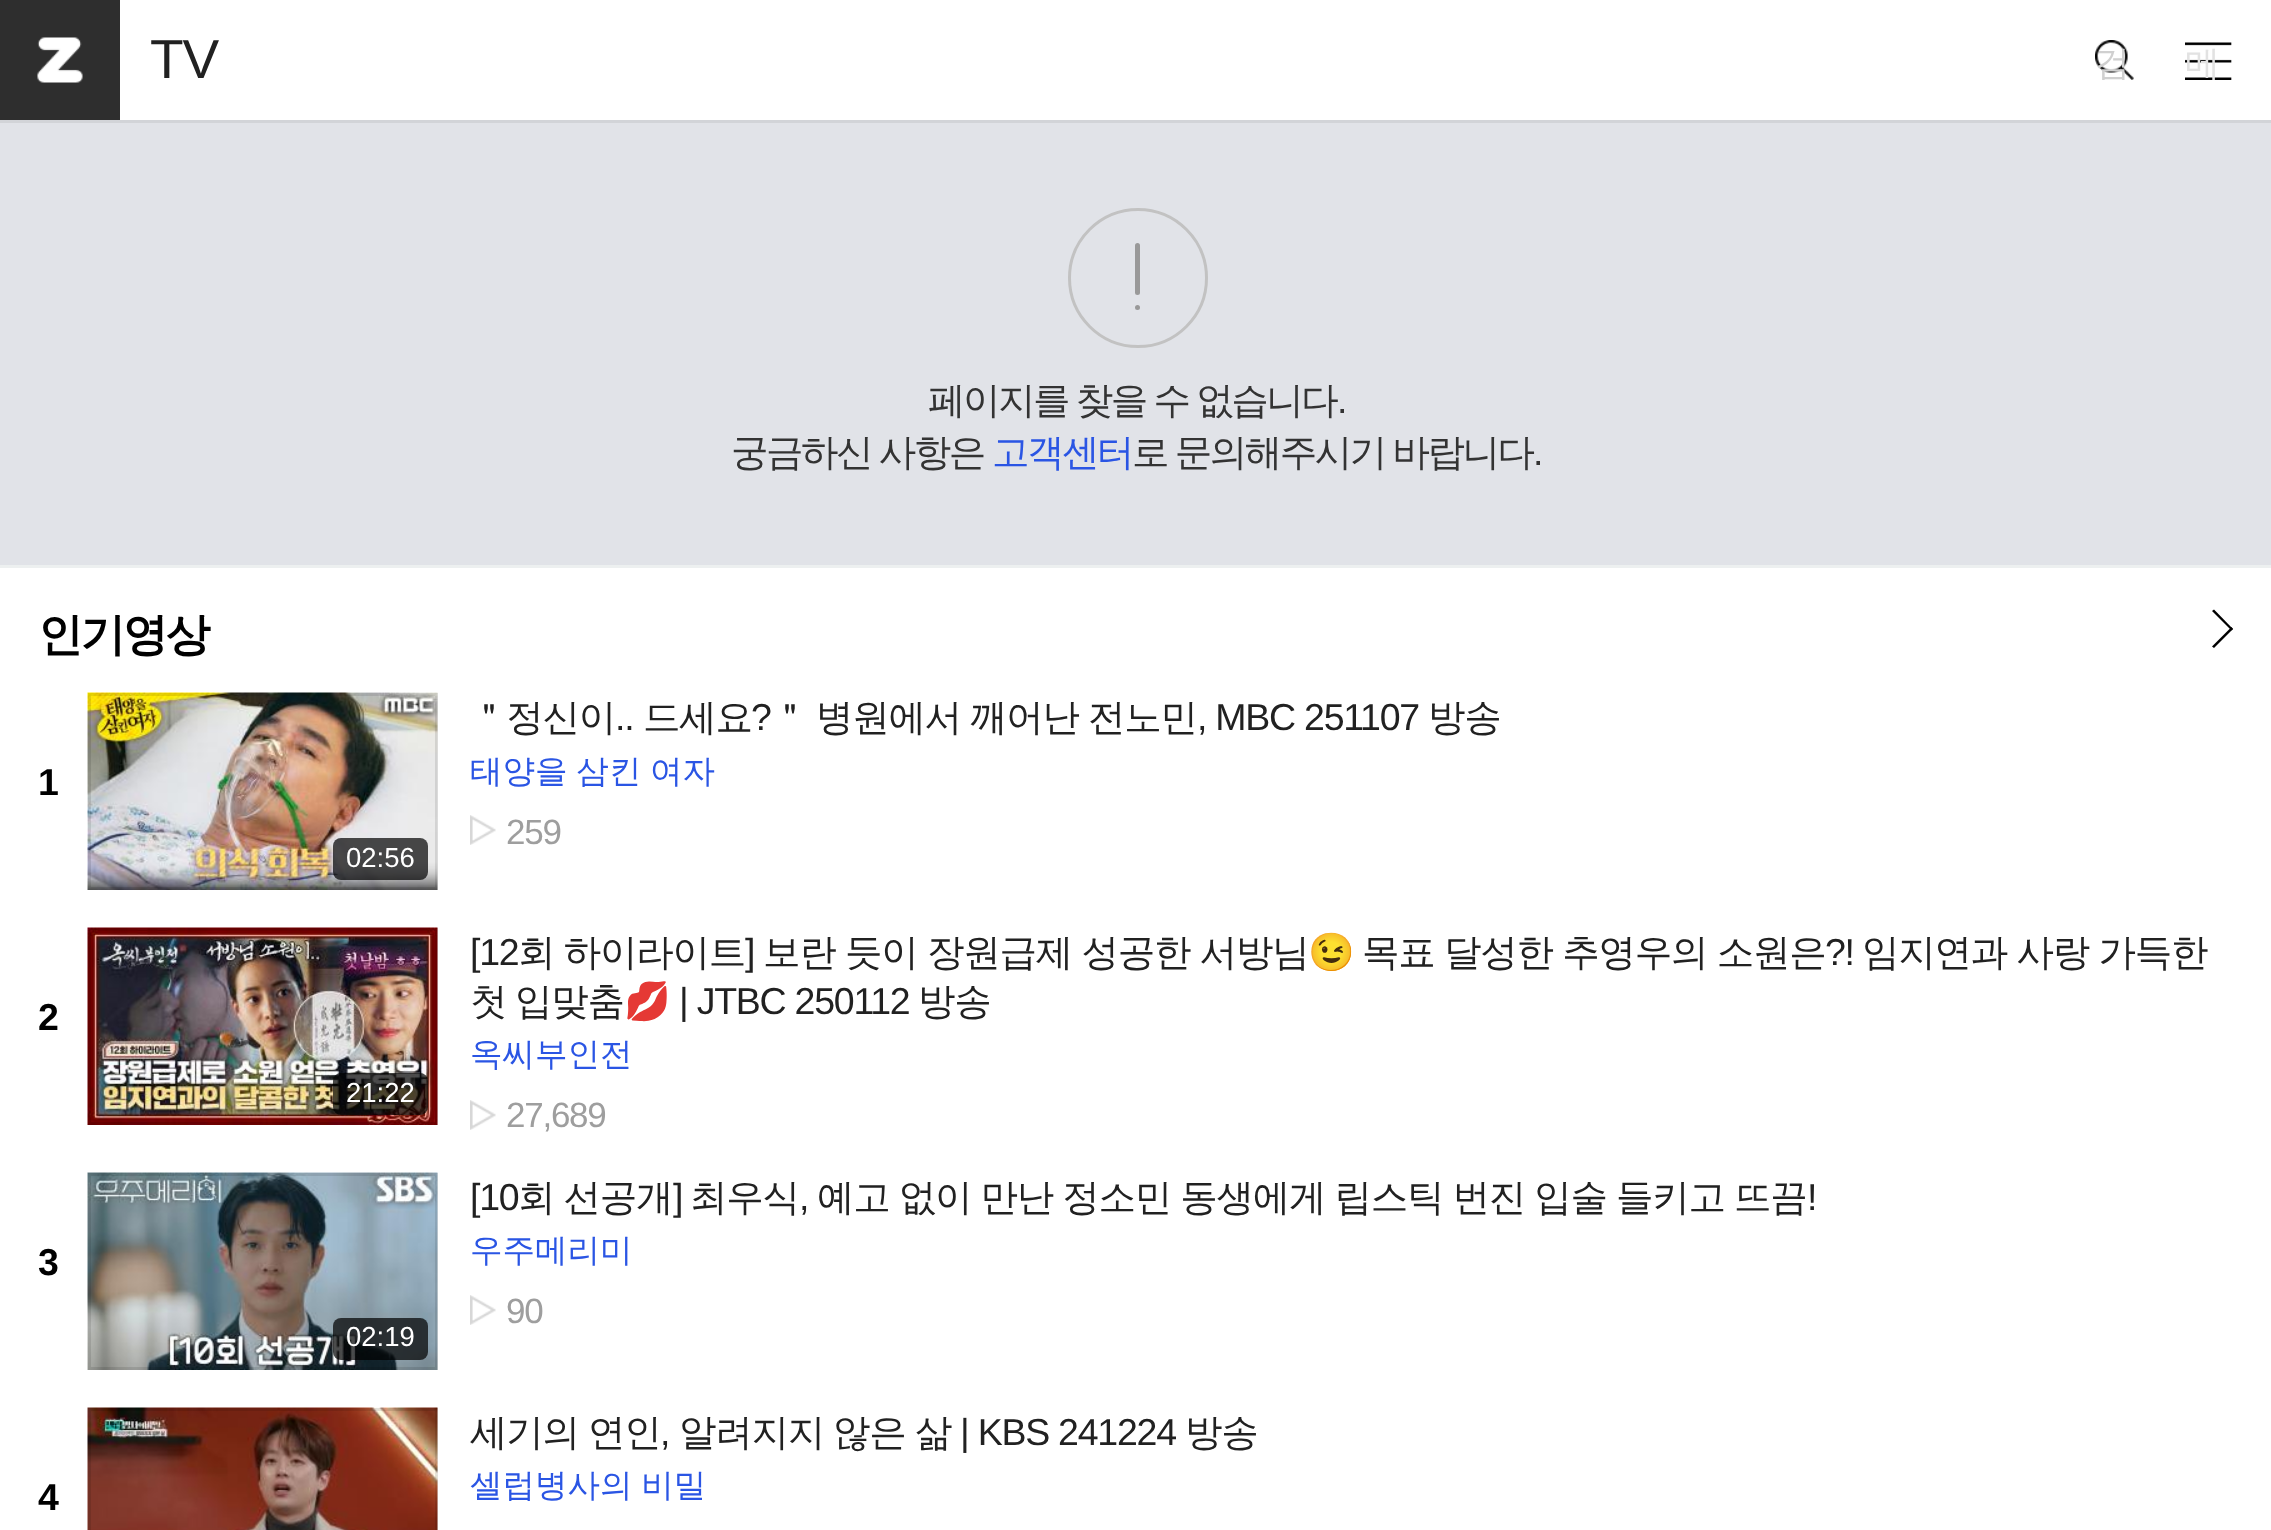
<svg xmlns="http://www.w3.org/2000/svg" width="2271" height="1530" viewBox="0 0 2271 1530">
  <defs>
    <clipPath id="clip1"><rect x="2095" y="40" width="40" height="40"/></clipPath>
  </defs>
  <rect width="100%" height="100%" fill="rgb(225,227,232)"/>
  <rect x="120" y="0" width="2151" height="120" fill="rgb(255,255,255)"/>
  <rect x="0" y="0" width="120" height="120" fill="rgb(46,46,46)"/>
  <image x="37" y="37" width="46" height="46" href="pic1.png"/>
  <text x="150" y="78" font-family="Liberation Sans" font-size="55" letter-spacing="-1" fill="rgb(33,33,33)">TV</text>
  <image x="2095" y="40" width="39" height="40" href="pic2.png"/>
  <g clip-path="url(#clip1)">
    <text x="2095" y="75" font-family="WenQuanYi Zen Hei" font-size="35" font-weight="500" fill="rgb(208,208,208)">검</text>
  </g>
  <image x="2185" y="42" width="47" height="38" href="pic3.png"/>
  <text x="2185" y="75" word-spacing="-1" font-family="WenQuanYi Zen Hei" font-size="35" font-weight="500" fill="rgb(226,226,226)">메</text>
  <rect x="0" y="120" width="2271" height="3" fill="rgb(210,212,216)"/>
  <circle cx="1138" cy="278" r="68.5" fill="none" stroke="rgb(194,194,194)" stroke-width="3"/>
  <rect x="1135" y="243" width="5" height="52" rx="2.5" fill="rgb(153,153,153)"/>
  <circle cx="1137.5" cy="307.5" r="2.5" fill="rgb(153,153,153)"/>
  <text x="928" y="413" word-spacing="-1" font-family="WenQuanYi Zen Hei" font-size="37.5" font-weight="500" letter-spacing="-2.5" fill="rgb(51,51,51)">페이지를 찾을 수 없습니다</text>
  <text x="1337" y="413" font-family="Liberation Sans" font-size="37.5" letter-spacing="-2.5" fill="rgb(51,51,51)">.</text>
  <text x="731" y="465" word-spacing="-1" font-family="WenQuanYi Zen Hei" font-size="37.5" font-weight="500" letter-spacing="-2.5" fill="rgb(51,51,51)">궁금하신 사항은</text>
  <text x="992" y="465" font-family="WenQuanYi Zen Hei" font-size="37.5" font-weight="500" letter-spacing="-2.5" fill="rgb(42,85,228)">고객센터</text>
  <text x="1132" y="465" word-spacing="-1" font-family="WenQuanYi Zen Hei" font-size="37.5" font-weight="500" letter-spacing="-2.5" fill="rgb(51,51,51)">로 문의해주시기 바랍니다</text>
  <text x="1533" y="465" font-family="Liberation Sans" font-size="37.5" letter-spacing="-2.5" fill="rgb(51,51,51)">.</text>
  <rect x="0" y="568" width="2271" height="962" fill="rgb(255,255,255)"/>
  <rect x="0" y="565" width="2271" height="3" fill="rgb(237,240,240)"/>
  <text x="38" y="650" font-family="WenQuanYi Zen Hei" font-size="45" font-weight="bold" letter-spacing="-2.5" fill="rgb(0,0,0)">인기영상</text>
  <path d="M2212 611L2214 609.5L2233 629L2231.5 630.5Z" fill="rgb(0,0,0)"/>
  <path d="M2212 646.5L2231.5 627L2233 629L2214 648Z" fill="rgb(0,0,0)"/>
  <text x="38" y="795" font-family="Liberation Sans" font-size="37.5" font-weight="bold" letter-spacing="-2.5" fill="rgb(0,0,0)">1</text>
  <g font-family="WenQuanYi Zen Hei" font-size="37.5" font-weight="500" letter-spacing="-1.25" fill="rgb(33,33,33)">
    <text x="470" y="730">＂정신이</text>
    <text x="643" y="730">드세요</text>
  </g>
  <text x="751" y="730" font-family="Liberation Sans" font-size="37.5" letter-spacing="-1.25" fill="rgb(33,33,33)">?</text>
  <g font-family="WenQuanYi Zen Hei" font-size="37.5" font-weight="500" letter-spacing="-1.25" fill="rgb(33,33,33)">
    <text x="771" y="730">＂</text>
    <text x="816" y="730">병원에서</text>
    <text x="970" y="730">깨어난</text>
    <text x="1088" y="730">전노민</text>
  </g>
  <text x="1197" y="730" font-family="Liberation Sans" font-size="37.5" letter-spacing="-1.25" fill="rgb(33,33,33)">, MBC 251107</text>
  <text x="1428" y="730" font-family="WenQuanYi Zen Hei" font-size="37.5" font-weight="500" letter-spacing="-1.25" fill="rgb(33,33,33)">방송</text>
  <text x="615" y="730" font-family="Liberation Sans" font-size="37.5" letter-spacing="-1.25" fill="rgb(33,33,33)">..</text>
  <text x="470" y="782" word-spacing="-1" font-family="WenQuanYi Zen Hei" font-size="32.5" font-weight="500" fill="rgb(42,85,228)">태양을 삼킨 여자</text>
  <image x="470" y="815" width="26" height="30" href="pic4.png"/>
  <text x="506" y="844" font-family="Liberation Sans" font-size="35" letter-spacing="-1.25" fill="rgb(158,158,158)">259</text>
  <image x="87" y="692" width="351" height="198" href="pic5.png"/>
  <rect x="89.5" y="694.5" width="347" height="194" fill="none" stroke="rgba(0,0,0,0.1)" stroke-width="3"/>
  <rect x="333" y="838" width="95" height="42" rx="8" fill="rgba(0,0,0,0.7)"/>
  <text x="346" y="867" font-family="Liberation Sans" font-size="27.5" fill="rgb(255,255,255)">02:56</text>
  <text x="38" y="1030" font-family="Liberation Sans" font-size="37.5" font-weight="bold" letter-spacing="-2.5" fill="rgb(0,0,0)">2</text>
  <text x="470" y="965" font-family="Liberation Sans" font-size="37.5" letter-spacing="-1.25" fill="rgb(33,33,33)">[12</text>
  <text x="518" y="965" word-spacing="-0.5" font-family="WenQuanYi Zen Hei" font-size="37.5" font-weight="500" letter-spacing="-1.25" fill="rgb(33,33,33)">회 하이라이트</text>
  <text x="745" y="965" font-family="Liberation Sans" font-size="37.5" letter-spacing="-1.25" fill="rgb(33,33,33)">]</text>
  <text x="763" y="965" word-spacing="-0.5" font-family="WenQuanYi Zen Hei" font-size="37.5" font-weight="500" letter-spacing="-1.25" fill="rgb(33,33,33)">보란 듯이 장원급제 성공한 서방님</text>
  <text x="1308" y="965" font-family="Noto Color Emoji" font-size="37.5" letter-spacing="-1.25" fill="rgb(33,33,33)">😉</text>
  <text x="1362" y="965" word-spacing="-0.5" font-family="WenQuanYi Zen Hei" font-size="37.5" font-weight="500" letter-spacing="-1.25" fill="rgb(33,33,33)">목표 달성한 추영우의 소원은</text>
  <text x="1825" y="965" font-family="Liberation Sans" font-size="37.5" letter-spacing="-1.25" fill="rgb(33,33,33)">?!</text>
  <g font-family="WenQuanYi Zen Hei" font-size="37.5" font-weight="500" letter-spacing="-1.25" fill="rgb(33,33,33)">
    <text x="1862" y="965" word-spacing="-0.5">임지연과 사랑 가득한</text>
    <text x="470" y="1014">첫</text>
    <text x="515" y="1014">입맞춤</text>
  </g>
  <text x="624" y="1014" font-family="Noto Color Emoji" font-size="37.5" letter-spacing="-1.25" fill="rgb(33,33,33)">💋</text>
  <text x="679" y="1014" font-family="Liberation Sans" font-size="37.5" letter-spacing="-1.25" fill="rgb(33,33,33)">| JTBC 250112</text>
  <text x="918" y="1014" font-family="WenQuanYi Zen Hei" font-size="37.5" font-weight="500" letter-spacing="-1.25" fill="rgb(33,33,33)">방송</text>
  <text x="470" y="1065" font-family="WenQuanYi Zen Hei" font-size="32.5" font-weight="500" fill="rgb(42,85,228)">옥씨부인전</text>
  <image x="470" y="1100" width="26" height="30" href="pic4.png"/>
  <text x="506" y="1127" font-family="Liberation Sans" font-size="35" letter-spacing="-1.25" fill="rgb(158,158,158)">27,689</text>
  <image x="87" y="927" width="351" height="198" href="pic6.png"/>
  <rect x="89.5" y="929.5" width="347" height="194" fill="none" stroke="rgba(0,0,0,0.1)" stroke-width="3"/>
  <rect x="333" y="1073" width="95" height="42" rx="8" fill="rgba(0,0,0,0.7)"/>
  <text x="346" y="1102" font-family="Liberation Sans" font-size="27.5" fill="rgb(255,255,255)">21:22</text>
  <text x="38" y="1275" font-family="Liberation Sans" font-size="37.5" font-weight="bold" letter-spacing="-2.5" fill="rgb(0,0,0)">3</text>
  <text x="470" y="1210" font-family="Liberation Sans" font-size="37.5" letter-spacing="-1.25" fill="rgb(33,33,33)">[10</text>
  <text x="518" y="1210" word-spacing="-0.75" font-family="WenQuanYi Zen Hei" font-size="37.5" font-weight="500" letter-spacing="-1.25" fill="rgb(33,33,33)">회 선공개</text>
  <text x="673" y="1210" font-family="Liberation Sans" font-size="37.5" letter-spacing="-1.25" fill="rgb(33,33,33)">]</text>
  <text x="690" y="1210" font-family="WenQuanYi Zen Hei" font-size="37.5" font-weight="500" letter-spacing="-1.25" fill="rgb(33,33,33)">최우식</text>
  <text x="799" y="1210" font-family="Liberation Sans" font-size="37.5" letter-spacing="-1.25" fill="rgb(33,33,33)">,</text>
  <text x="817" y="1210" word-spacing="-0.75" font-family="WenQuanYi Zen Hei" font-size="37.5" font-weight="500" letter-spacing="-1.25" fill="rgb(33,33,33)">예고 없이 만난 정소민 동생에게 립스틱 번진 입술 들키고 뜨끔</text>
  <text x="1807" y="1210" font-family="Liberation Sans" font-size="37.5" letter-spacing="-1.25" fill="rgb(33,33,33)">!</text>
  <text x="470" y="1261" font-family="WenQuanYi Zen Hei" font-size="32.5" font-weight="500" fill="rgb(42,85,228)">우주메리미</text>
  <image x="470" y="1295" width="26" height="30" href="pic4.png"/>
  <text x="506" y="1323" font-family="Liberation Sans" font-size="35" letter-spacing="-1.25" fill="rgb(158,158,158)">90</text>
  <image x="87" y="1172" width="351" height="198" href="pic7.png"/>
  <rect x="89.5" y="1174.5" width="347" height="194" fill="none" stroke="rgba(0,0,0,0.1)" stroke-width="3"/>
  <rect x="333" y="1318" width="95" height="42" rx="8" fill="rgba(0,0,0,0.7)"/>
  <text x="346" y="1346" font-family="Liberation Sans" font-size="27.5" fill="rgb(255,255,255)">02:19</text>
  <text x="38" y="1510" font-family="Liberation Sans" font-size="37.5" font-weight="bold" letter-spacing="-2.5" fill="rgb(0,0,0)">4</text>
  <image x="87" y="1407" width="351" height="123" href="pic8.png"/>
  <rect x="89.5" y="1409.5" width="347" height="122" fill="none" stroke="rgba(0,0,0,0.1)" stroke-width="3"/>
  <g font-family="WenQuanYi Zen Hei" font-size="37.5" font-weight="500" letter-spacing="-1.25" fill="rgb(33,33,33)">
    <text x="470" y="1445">세기의</text>
    <text x="588" y="1445">연인</text>
  </g>
  <text x="660" y="1445" font-family="Liberation Sans" font-size="37.5" letter-spacing="-1.25" fill="rgb(33,33,33)">,</text>
  <g font-family="WenQuanYi Zen Hei" font-size="37.5" font-weight="500" letter-spacing="-1.25" fill="rgb(33,33,33)">
    <text x="679" y="1445">알려지지</text>
    <text x="833" y="1445">않은</text>
    <text x="915" y="1445">삶</text>
  </g>
  <text x="960" y="1445" font-family="Liberation Sans" font-size="37.5" letter-spacing="-1.25" fill="rgb(33,33,33)">| KBS 241224</text>
  <text x="1185" y="1445" font-family="WenQuanYi Zen Hei" font-size="37.5" font-weight="500" letter-spacing="-1.25" fill="rgb(33,33,33)">방송</text>
  <text x="470" y="1496" word-spacing="-1" font-family="WenQuanYi Zen Hei" font-size="32.5" font-weight="500" fill="rgb(42,85,228)">셀럽병사의 비밀</text>
</svg>
